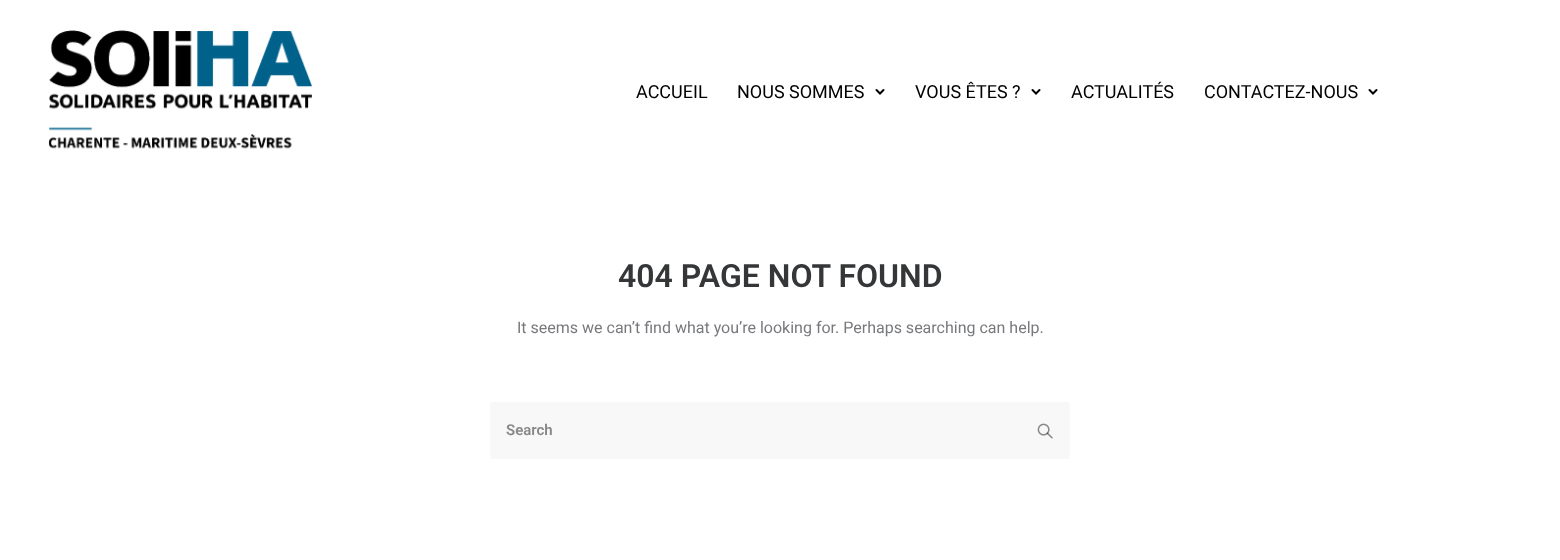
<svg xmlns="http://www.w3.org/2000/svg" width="1560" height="560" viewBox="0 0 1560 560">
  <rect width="100%" height="100%" fill="rgb(255,255,255)"/>
  <image x="48" y="30" width="264" height="119" href="pic1.png"/>
  <g font-family="Roboto" font-size="18" fill="rgb(0,0,0)">
    <text x="636" y="98">ACCUEIL</text>
    <text x="737" y="98">NOUS SOMMES</text>
  </g>
  <path d="M883.5 90L880 93.5L876.5 90" fill="none" stroke="rgb(0,0,0)" stroke-width="2" stroke-linecap="round"/>
  <text x="915" y="98" font-family="Roboto" font-size="18" fill="rgb(0,0,0)">VOUS ÊTES ?</text>
  <path d="M1039.5 90L1036 93.5L1032.5 90" fill="none" stroke="rgb(0,0,0)" stroke-width="2" stroke-linecap="round"/>
  <g font-family="Roboto" font-size="18" fill="rgb(0,0,0)">
    <text x="1071" y="98">ACTUALITÉS</text>
    <text x="1204" y="98">CONTACTEZ-NOUS</text>
  </g>
  <path d="M1376.5 90L1373 93.5L1369.5 90" fill="none" stroke="rgb(0,0,0)" stroke-width="2" stroke-linecap="round"/>
  <text x="618" y="287" font-family="Roboto" font-size="32" font-weight="600" fill="rgb(52,54,56)">404 PAGE NOT FOUND</text>
  <text x="517" y="333" font-family="Roboto" font-size="16" fill="rgb(119,121,125)">It seems we can’t find what you’re looking for. Perhaps searching can help.</text>
  <rect x="490" y="402" width="580" height="57" rx="3" fill="rgb(248,248,248)"/>
  <text x="506" y="435" font-family="Roboto" font-size="15" font-weight="600" fill="rgb(136,136,136)">Search</text>
  <image x="1037" y="423" width="16" height="16" href="pic2.png"/>
</svg>
